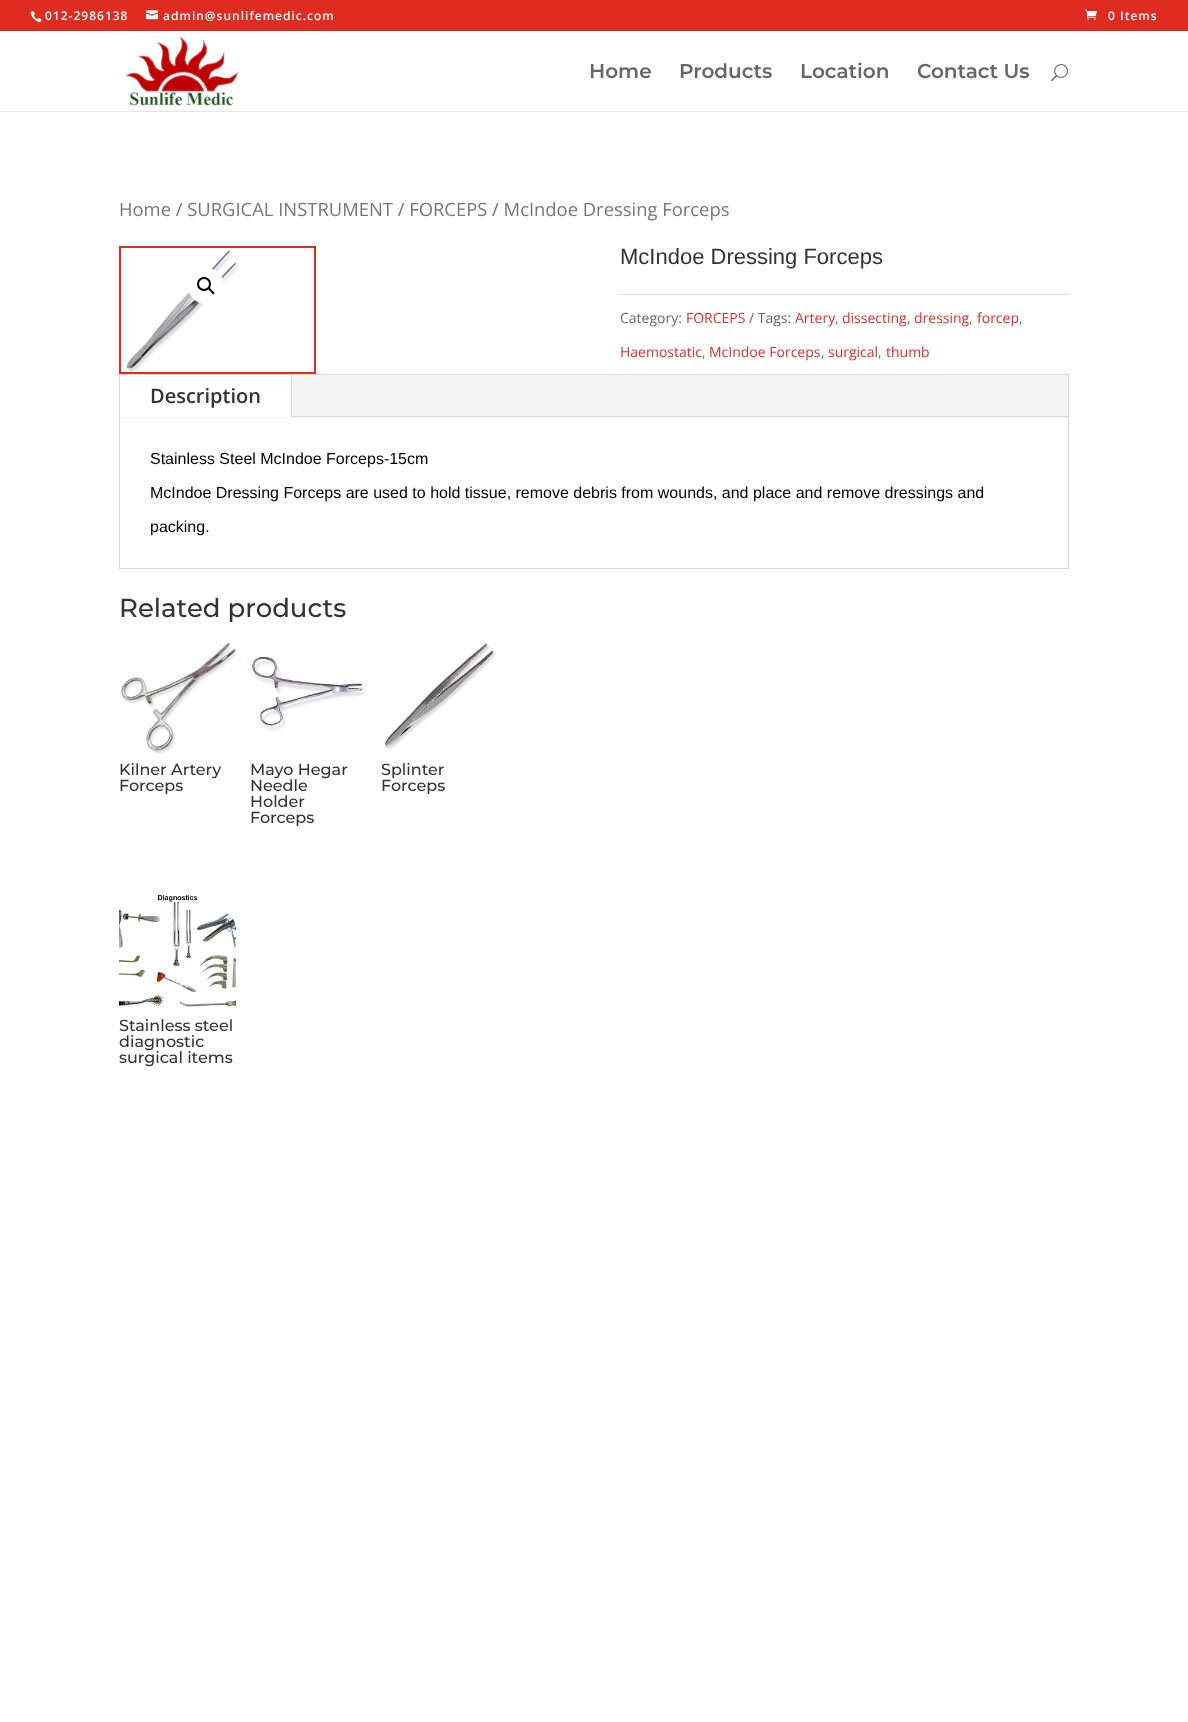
<svg xmlns="http://www.w3.org/2000/svg" width="1188" height="1722" viewBox="0 0 1188 1722">
  <rect width="100%" height="100%" fill="rgb(255,255,255)"/>
  <rect x="0" y="0" width="1188" height="31" fill="rgb(224,43,32)"/>
  <image x="30" y="11" width="12" height="12" href="pic1.png"/>
  <text x="45" y="20" font-family="Open Sans" font-size="12" font-weight="600" letter-spacing="1" fill="rgb(255,255,255)">012-2986138</text>
  <image x="146" y="10" width="12" height="10" href="pic2.png"/>
  <text x="163" y="20" font-family="Open Sans" font-size="12" font-weight="600" letter-spacing="1" fill="rgb(255,255,255)">admin@sunlifemedic.com</text>
  <image x="1085" y="9" width="12" height="11" href="pic3.png"/>
  <text x="1108" y="20" font-family="Open Sans" font-size="12" font-weight="600" letter-spacing="1" fill="rgb(255,255,255)">0 Items</text>
  <rect x="0" y="111" width="1188" height="1" fill="rgb(230,230,230)"/>
  <image x="125" y="36" width="114" height="70" href="pic4.png"/>
  <g font-family="Montserrat" font-size="20" font-weight="600" fill="rgb(102,102,102)">
    <text x="589" y="78">Home</text>
    <text x="679" y="78">Products</text>
    <text x="800" y="78">Location</text>
    <text x="917" y="78">Contact Us</text>
  </g>
  <image x="1051" y="64" width="17" height="18" href="pic5.png"/>
  <text x="119" y="216" font-family="Open Sans" font-size="18.4" fill="rgb(118,118,118)">Home / SURGICAL INSTRUMENT / FORCEPS / McIndoe Dressing Forceps</text>
  <rect x="120" y="247" width="195" height="126" fill="none" stroke="rgb(224,43,32)" stroke-width="2"/>
  <image x="126" y="250" width="113" height="122" href="pic6.png"/>
  <circle cx="206" cy="286" r="18" fill="rgb(255,255,255)"/>
  <circle cx="204" cy="284" r="6" fill="none" stroke="rgb(0,0,0)" stroke-width="2"/>
  <path d="M208.5 288C209.5 287 211.5 289.5 212 290.5C212.5 291 215.5 292.5 214 294C213 295 211.5 292.5 210.5 291.5C210 291 207.5 289.5 208.5 288Z" fill="rgb(0,0,0)"/>
  <text x="620" y="264" font-family="Liberation Sans" font-size="22" fill="rgb(51,51,51)">McIndoe Dressing Forceps</text>
  <rect x="620" y="294" width="449" height="1" fill="rgb(218,218,218)"/>
  <text x="620" y="323" font-family="Open Sans" font-size="14" fill="rgb(102,102,102)">Category:</text>
  <text x="686" y="323" font-family="Open Sans" font-size="14" fill="rgb(229,43,43)">FORCEPS</text>
  <text x="749" y="323" font-family="Open Sans" font-size="14" fill="rgb(102,102,102)">/ Tags:</text>
  <text x="795" y="323" font-family="Open Sans" font-size="14" fill="rgb(229,43,43)">Artery</text>
  <text x="835" y="323" font-family="Open Sans" font-size="14" fill="rgb(102,102,102)">,</text>
  <text x="842" y="323" font-family="Open Sans" font-size="14" fill="rgb(229,43,43)">dissecting</text>
  <text x="907" y="323" font-family="Open Sans" font-size="14" fill="rgb(102,102,102)">,</text>
  <text x="914" y="323" font-family="Open Sans" font-size="14" fill="rgb(229,43,43)">dressing</text>
  <text x="969" y="323" font-family="Open Sans" font-size="14" fill="rgb(102,102,102)">,</text>
  <text x="977" y="323" font-family="Open Sans" font-size="14" fill="rgb(229,43,43)">forcep</text>
  <text x="1019" y="323" font-family="Open Sans" font-size="14" fill="rgb(102,102,102)">,</text>
  <text x="620" y="357" font-family="Open Sans" font-size="14" fill="rgb(229,43,43)">Haemostatic</text>
  <text x="702" y="357" font-family="Open Sans" font-size="14" fill="rgb(102,102,102)">,</text>
  <text x="709" y="357" font-family="Open Sans" font-size="14" fill="rgb(229,43,43)">McIndoe Forceps</text>
  <text x="821" y="357" font-family="Open Sans" font-size="14" fill="rgb(102,102,102)">,</text>
  <text x="828" y="357" font-family="Open Sans" font-size="14" fill="rgb(229,43,43)">surgical</text>
  <text x="878" y="357" font-family="Open Sans" font-size="14" fill="rgb(102,102,102)">,</text>
  <text x="886" y="357" font-family="Open Sans" font-size="14" fill="rgb(229,43,43)">thumb</text>
  <rect x="119.5" y="374.5" width="949" height="194" fill="none" stroke="rgb(217,217,217)"/>
  <rect x="120" y="375" width="948" height="43" fill="rgb(244,244,244)"/>
  <rect x="120" y="375" width="171" height="42" fill="rgb(255,255,255)"/>
  <rect x="291" y="375" width="1" height="42" fill="rgb(217,217,217)"/>
  <text x="150" y="403" font-family="Open Sans" font-size="20" font-weight="600" fill="rgb(51,51,51)">Description</text>
  <rect x="292" y="416" width="776" height="1" fill="rgb(217,217,217)"/>
  <g font-family="Liberation Sans" font-size="16" fill="rgb(0,0,0)">
    <text x="150" y="464">Stainless Steel McIndoe Forceps-15cm</text>
    <text x="150" y="498">McIndoe Dressing Forceps are used to hold tissue, remove debris from wounds, and place and remove dressings and</text>
    <text x="150" y="532">packing.</text>
  </g>
  <text x="119" y="617" font-family="Montserrat" font-size="26" font-weight="500" fill="rgb(51,51,51)">Related products</text>
  <image x="121" y="643" width="115" height="111" href="pic7.png"/>
  <g font-family="Montserrat" font-size="16" font-weight="500" fill="rgb(51,51,51)">
    <text>
      <tspan x="119" y="775">Kilner Artery</tspan>
      <tspan x="119" y="791">Forceps</tspan>
    </text>
  </g>
  <image x="252" y="657" width="113" height="74" href="pic8.png"/>
  <g font-family="Montserrat" font-size="16" font-weight="500" fill="rgb(51,51,51)">
    <text>
      <tspan x="250" y="775">Mayo Hegar</tspan>
      <tspan x="250" y="791">Needle</tspan>
      <tspan x="250" y="807">Holder</tspan>
      <tspan x="250" y="823">Forceps</tspan>
    </text>
  </g>
  <image x="384" y="643" width="112" height="107" href="pic9.png"/>
  <g font-family="Montserrat" font-size="16" font-weight="500" fill="rgb(51,51,51)">
    <text>
      <tspan x="381" y="775">Splinter</tspan>
      <tspan x="381" y="791">Forceps</tspan>
    </text>
  </g>
  <image x="119" y="894" width="117" height="113" href="pic10.png"/>
  <g font-family="Montserrat" font-size="16" font-weight="500" fill="rgb(51,51,51)">
    <text>
      <tspan x="119" y="1031">Stainless steel</tspan>
      <tspan x="119" y="1047">diagnostic</tspan>
      <tspan x="119" y="1063">surgical items</tspan>
    </text>
  </g>
</svg>
